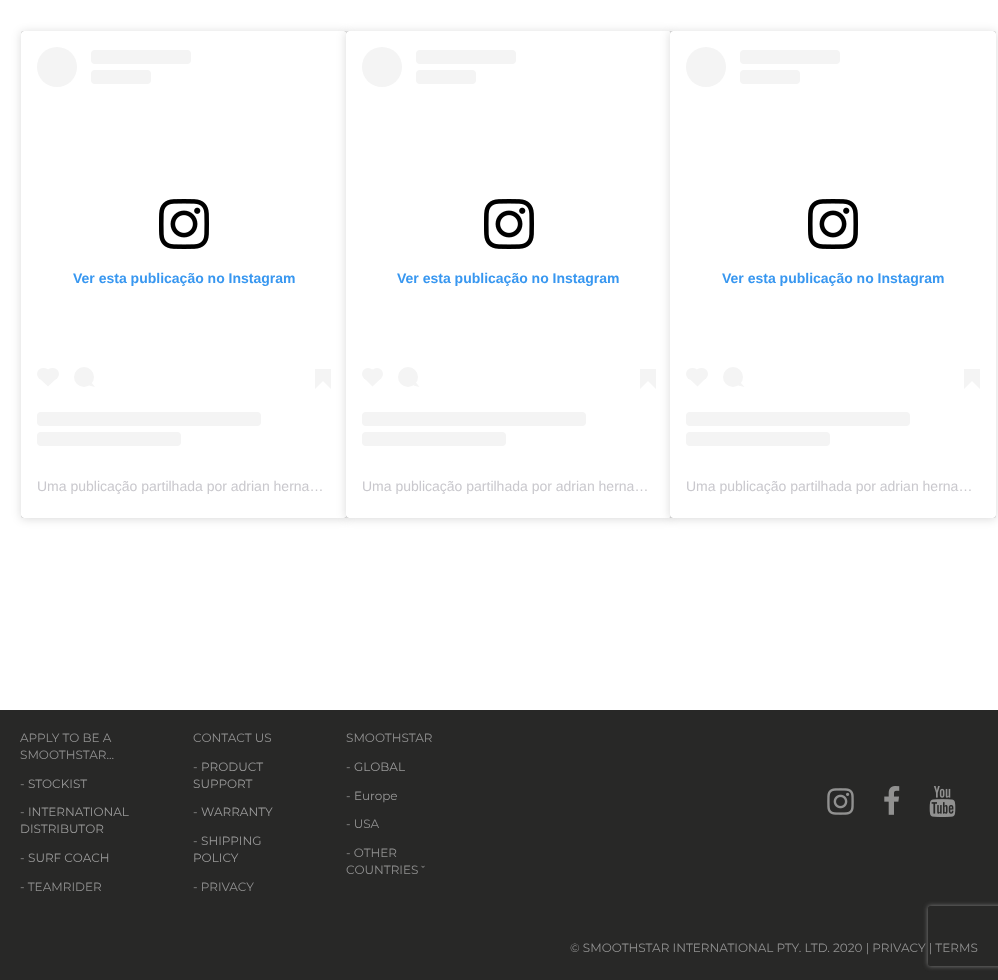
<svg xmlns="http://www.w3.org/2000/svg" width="998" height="980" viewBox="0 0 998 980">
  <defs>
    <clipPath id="clip1"><path d="M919 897H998V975H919ZM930 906H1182C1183 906 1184 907 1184 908V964C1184 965 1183 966 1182 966H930C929 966 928 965 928 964V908C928 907 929 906 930 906Z" clip-rule="evenodd"/></clipPath>
  </defs>
  <rect width="100%" height="100%" fill="rgb(255,255,255)"/>
  <rect x="21" y="32" width="326" height="487" rx="3" fill="rgba(0,0,0,0.15)" filter="blur(5px)"/>
  <rect x="21" y="31" width="326" height="487" rx="3" fill="rgba(0,0,0,0.5)" filter="blur(0.5px)"/>
  <rect x="21" y="31" width="326" height="487" rx="3" fill="rgb(255,255,255)"/>
  <circle cx="57" cy="67" r="20" fill="rgb(244,244,244)"/>
  <rect x="91" y="50" width="100" height="14" rx="4" fill="rgb(244,244,244)"/>
  <rect x="91" y="70" width="60" height="14" rx="4" fill="rgb(244,244,244)"/>
  <image x="159" y="199" width="50" height="50" href="pic1.png"/>
  <text x="73" y="283" font-family="Liberation Sans" font-size="14" font-weight="bold" fill="rgb(56,151,240)">Ver esta publicação no Instagram</text>
  <rect x="37" y="368" width="13" height="12" rx="6" fill="rgb(244,244,244)"/>
  <path d="M39 378L48 369L57 378L48 386.5Z" fill="rgb(244,244,244)"/>
  <rect x="46" y="368" width="13" height="12" rx="6" fill="rgb(244,244,244)"/>
  <circle cx="84" cy="377" r="10" fill="rgb(244,244,244)"/>
  <path d="M89 385.5L91 382L95 387Z" fill="rgb(244,244,244)"/>
  <rect x="346" y="32" width="326" height="487" rx="3" fill="rgba(0,0,0,0.15)" filter="blur(5px)"/>
  <rect x="315" y="369" width="16" height="12" fill="rgb(244,244,244)"/>
  <path d="M315 381H323L315 389Z" fill="rgb(244,244,244)"/>
  <path d="M323 381H331V389Z" fill="rgb(244,244,244)"/>
  <rect x="37" y="412" width="224" height="14" rx="4" fill="rgb(244,244,244)"/>
  <rect x="37" y="432" width="144" height="14" rx="4" fill="rgb(244,244,244)"/>
  <text x="37" y="491" font-family="Liberation Sans" font-size="14" fill="rgb(201,200,205)">Uma publicação partilhada por adrian herna…</text>
  <rect x="346" y="31" width="326" height="487" rx="3" fill="rgba(0,0,0,0.5)" filter="blur(0.5px)"/>
  <rect x="346" y="31" width="326" height="487" rx="3" fill="rgb(255,255,255)"/>
  <circle cx="382" cy="67" r="20" fill="rgb(244,244,244)"/>
  <rect x="416" y="50" width="100" height="14" rx="4" fill="rgb(244,244,244)"/>
  <rect x="416" y="70" width="60" height="14" rx="4" fill="rgb(244,244,244)"/>
  <image x="484" y="199" width="50" height="50" href="pic1.png"/>
  <text x="397" y="283" font-family="Liberation Sans" font-size="14" font-weight="bold" fill="rgb(56,151,240)">Ver esta publicação no Instagram</text>
  <circle cx="368" cy="374" r="6" fill="rgb(244,244,244)"/>
  <path d="M364 378L372.5 369L381.5 378L372.5 386.5Z" fill="rgb(244,244,244)"/>
  <circle cx="377" cy="374" r="6" fill="rgb(244,244,244)"/>
  <circle cx="408" cy="377" r="10" fill="rgb(244,244,244)"/>
  <path d="M413.5 385.5L415.5 382L419.5 387Z" fill="rgb(244,244,244)"/>
  <rect x="670" y="32" width="326" height="487" rx="3" fill="rgba(0,0,0,0.15)" filter="blur(5px)"/>
  <rect x="640" y="369" width="16" height="12" fill="rgb(244,244,244)"/>
  <path d="M640 381H648L640 389Z" fill="rgb(244,244,244)"/>
  <path d="M648 381H656V389Z" fill="rgb(244,244,244)"/>
  <rect x="362" y="412" width="224" height="14" rx="4" fill="rgb(244,244,244)"/>
  <rect x="362" y="432" width="144" height="14" rx="4" fill="rgb(244,244,244)"/>
  <text x="362" y="491" font-family="Liberation Sans" font-size="14" fill="rgb(201,200,205)">Uma publicação partilhada por adrian herna…</text>
  <rect x="670" y="31" width="326" height="487" rx="3" fill="rgba(0,0,0,0.5)" filter="blur(0.5px)"/>
  <rect x="670" y="31" width="326" height="487" rx="3" fill="rgb(255,255,255)"/>
  <circle cx="706" cy="67" r="20" fill="rgb(244,244,244)"/>
  <rect x="740" y="50" width="100" height="14" rx="4" fill="rgb(244,244,244)"/>
  <rect x="740" y="70" width="60" height="14" rx="4" fill="rgb(244,244,244)"/>
  <image x="808" y="199" width="50" height="50" href="pic1.png"/>
  <text x="722" y="283" font-family="Liberation Sans" font-size="14" font-weight="bold" fill="rgb(56,151,240)">Ver esta publicação no Instagram</text>
  <rect x="686" y="368" width="13" height="12" rx="6" fill="rgb(244,244,244)"/>
  <path d="M688.5 378L697.5 369L706 378L697.5 386.5Z" fill="rgb(244,244,244)"/>
  <rect x="695" y="368" width="13" height="12" rx="6" fill="rgb(244,244,244)"/>
  <circle cx="733" cy="377" r="10" fill="rgb(244,244,244)"/>
  <path d="M738 385.5L740 382L744.5 387Z" fill="rgb(244,244,244)"/>
  <rect x="964" y="369" width="16" height="12" fill="rgb(244,244,244)"/>
  <path d="M964 381H972L964 389Z" fill="rgb(244,244,244)"/>
  <path d="M972 381H980V389Z" fill="rgb(244,244,244)"/>
  <rect x="686" y="412" width="224" height="14" rx="4" fill="rgb(244,244,244)"/>
  <rect x="686" y="432" width="144" height="14" rx="4" fill="rgb(244,244,244)"/>
  <text x="686" y="491" font-family="Liberation Sans" font-size="14" fill="rgb(201,200,205)">Uma publicação partilhada por adrian herna…</text>
  <rect x="0" y="710" width="998" height="270" fill="rgb(40,40,39)"/>
  <g font-family="Montserrat" font-size="12" font-weight="100" fill="rgb(145,145,145)">
    <text>
      <tspan x="20" y="742">APPLY TO BE A</tspan>
      <tspan x="20" y="759">SMOOTHSTAR...</tspan>
    </text>
    <text x="20" y="788">-</text>
  </g>
  <text x="28" y="788" font-family="Montserrat" font-size="12" font-weight="100" fill="rgb(153,153,153)">STOCKIST</text>
  <text x="20" y="816" font-family="Montserrat" font-size="12" font-weight="100" fill="rgb(145,145,145)">-</text>
  <g font-family="Montserrat" font-size="12" font-weight="100" fill="rgb(153,153,153)">
    <text x="28" y="816">INTERNATIONAL</text>
    <text x="20" y="833">DISTRIBUTOR</text>
  </g>
  <text x="20" y="862" font-family="Montserrat" font-size="12" font-weight="100" fill="rgb(145,145,145)">-</text>
  <text x="28" y="862" font-family="Montserrat" font-size="12" font-weight="100" fill="rgb(153,153,153)">SURF COACH</text>
  <g font-family="Montserrat" font-size="12" font-weight="100" fill="rgb(145,145,145)">
    <text x="20" y="891">- TEAMRIDER</text>
    <text x="193" y="742">CONTACT US</text>
    <text x="193" y="771">-</text>
  </g>
  <g font-family="Montserrat" font-size="12" font-weight="100" fill="rgb(153,153,153)">
    <text x="201" y="771">PRODUCT</text>
    <text x="193" y="788">SUPPORT</text>
  </g>
  <text x="193" y="816" font-family="Montserrat" font-size="12" font-weight="100" fill="rgb(145,145,145)">-</text>
  <text x="201" y="816" font-family="Montserrat" font-size="12" font-weight="100" fill="rgb(153,153,153)">WARRANTY</text>
  <text x="193" y="845" font-family="Montserrat" font-size="12" font-weight="100" fill="rgb(145,145,145)">-</text>
  <g font-family="Montserrat" font-size="12" font-weight="100" fill="rgb(153,153,153)">
    <text x="201" y="845">SHIPPING</text>
    <text x="193" y="862">POLICY</text>
  </g>
  <g font-family="Montserrat" font-size="12" font-weight="100" fill="rgb(145,145,145)">
    <text x="193" y="891">- PRIVACY</text>
    <text x="346" y="742">SMOOTHSTAR</text>
    <text x="346" y="771">-</text>
  </g>
  <text x="354" y="771" font-family="Montserrat" font-size="12" font-weight="100" fill="rgb(153,153,153)">GLOBAL</text>
  <text x="346" y="800" font-family="Montserrat" font-size="12" font-weight="100" fill="rgb(145,145,145)">-</text>
  <text x="354" y="800" font-family="Montserrat" font-size="12" font-weight="100" fill="rgb(153,153,153)">Europe</text>
  <g font-family="Montserrat" font-size="12" font-weight="100" fill="rgb(145,145,145)">
    <text x="346" y="828">- USA</text>
    <text>
      <tspan x="346" y="857">- OTHER</tspan>
      <tspan x="346" y="874">COUNTRIES</tspan>
    </text>
  </g>
  <text x="421" y="874" font-family="Liberation Serif" font-size="12" fill="rgb(145,145,145)">ˇ</text>
  <image x="827" y="788" width="27" height="27" href="pic2.png"/>
  <image x="884" y="786" width="16" height="29" href="pic3.png"/>
  <image x="929" y="786" width="27" height="31" href="pic4.png"/>
  <text x="570" y="952" font-family="Montserrat" font-size="12" font-weight="100" fill="rgb(145,145,145)">© SMOOTHSTAR INTERNATIONAL PTY. LTD. 2020 | PRIVACY | TERMS</text>
  <g clip-path="url(#clip1)">
    <rect x="928" y="906" width="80" height="60" rx="2" fill="rgb(128,128,128)" filter="blur(2.5px)"/>
  </g>
</svg>
